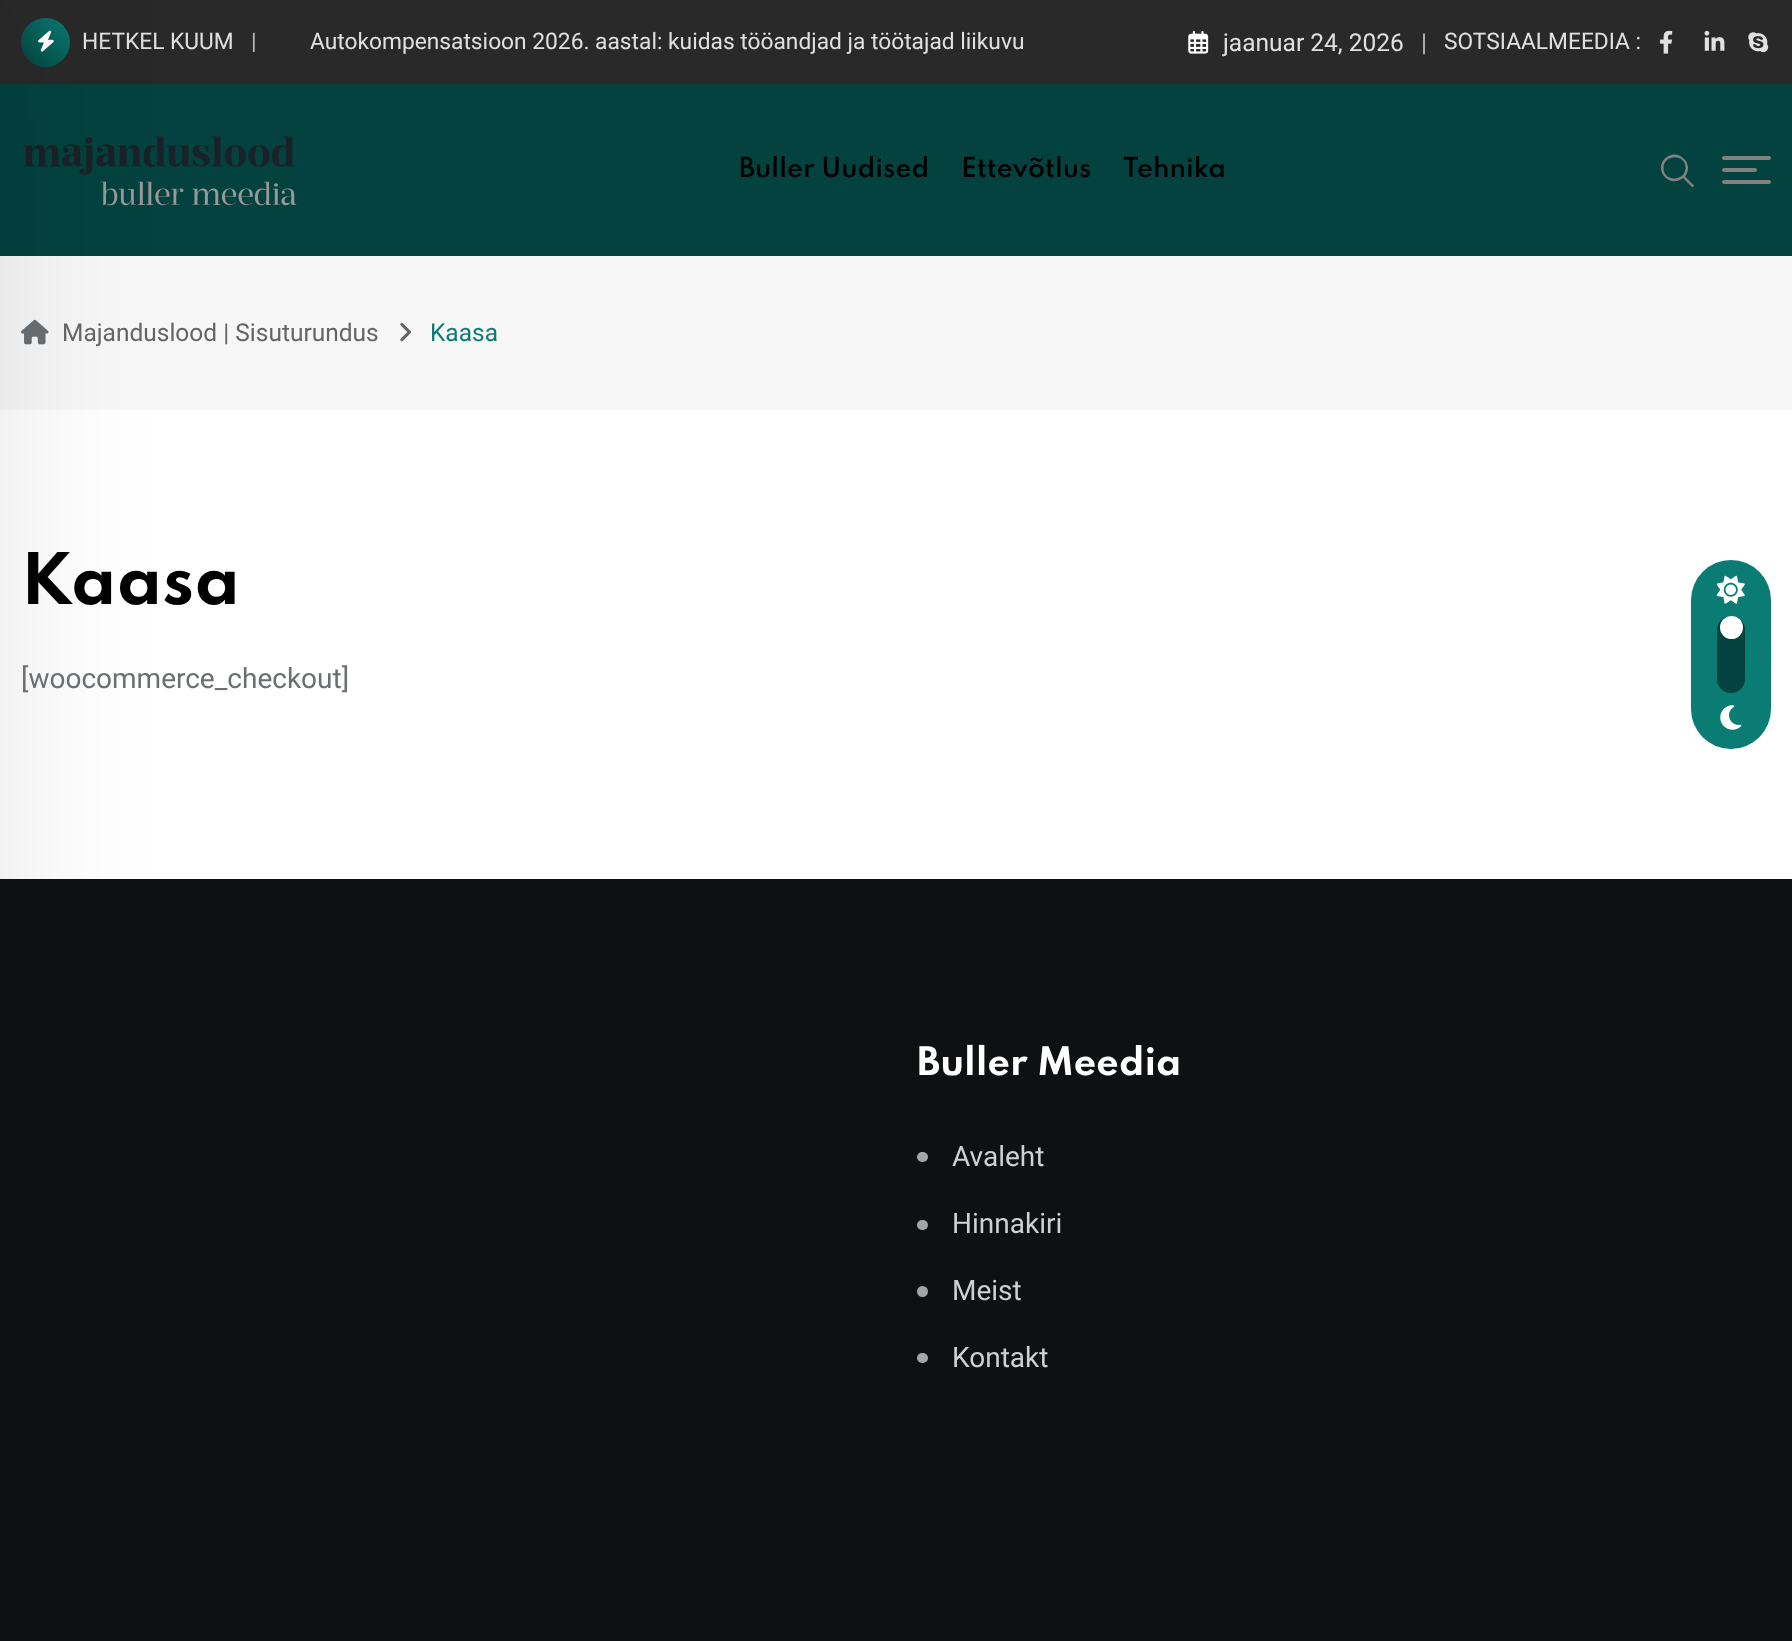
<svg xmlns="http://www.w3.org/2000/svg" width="1792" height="1641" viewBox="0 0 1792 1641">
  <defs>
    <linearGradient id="g1" gradientUnits="userSpaceOnUse" x1="21" y1="67" x2="70" y2="18"><stop offset="0" stop-color="rgb(3,66,63)"/><stop offset="1" stop-color="rgb(11,124,116)"/></linearGradient>
  </defs>
  <rect width="100%" height="100%" fill="rgb(255,255,255)"/>
  <rect x="0" y="84" width="1792" height="172" fill="rgb(3,66,63)"/>
  <rect x="0" y="0" width="1792" height="84" fill="rgb(41,41,41)"/>
  <circle cx="45.5" cy="42.5" r="24.5" fill="url(#g1)"/>
  <image x="38" y="30" width="16" height="22" href="pic1.png"/>
  <text x="82" y="49" font-family="Roboto" font-size="22.75" fill="rgb(224,224,224)">HETKEL KUUM</text>
  <text x="251" y="49" font-family="Roboto" font-size="22.75" fill="rgb(187,187,187)">|</text>
  <text x="310" y="49" font-family="Roboto" font-size="22.75" fill="rgb(224,224,224)">Autokompensatsioon 2026. aastal: kuidas tööandjad ja töötajad liikuvu</text>
  <image x="1188" y="30" width="21" height="24" href="pic2.png"/>
  <text x="1223" y="51" font-family="Roboto" font-size="24.5" fill="rgb(224,224,224)">jaanuar 24, 2026</text>
  <text x="1421" y="51" font-family="Roboto" font-size="24.5" fill="rgb(187,187,187)">|</text>
  <text x="1444" y="49" font-family="Roboto" font-size="22.75" fill="rgb(224,224,224)">SOTSIAALMEEDIA :</text>
  <image x="1660" y="30" width="13" height="24" href="pic3.png"/>
  <image x="1704" y="30" width="21" height="21" href="pic4.png"/>
  <image x="1748" y="32" width="21" height="21" href="pic5.png"/>
  <image x="23" y="136" width="274" height="70" href="pic6.png"/>
  <rect x="0" y="256" width="1792" height="154" fill="rgb(247,247,247)"/>
  <image x="21" y="319" width="28" height="26" href="pic7.png"/>
  <rect x="0" y="879" width="1792" height="762" fill="rgb(15,16,18)"/>
  <rect x="-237" y="0" width="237" height="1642" fill="rgba(0,0,0,0.1)" filter="blur(79px)"/>
  <rect x="1722" y="156" width="49" height="4" rx="2" fill="rgb(129,129,129)"/>
  <rect x="1722" y="168" width="35" height="4" rx="2" fill="rgb(129,129,129)"/>
  <rect x="1722" y="180" width="49" height="4" rx="2" fill="rgb(129,129,129)"/>
  <path d="M1694 185.5L1685 176.5C1695.5 163.5 1677 146.5 1665 158.5C1653 170 1670 189 1683 178L1692.5 187.5ZM1663.5 168C1663.5 153.5 1686 153.5 1685.5 168C1685 182 1663.5 182 1663.5 168Z" fill="rgb(129,129,129)"/>
  <g font-family="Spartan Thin" font-size="24.5" font-weight="600" fill="rgb(0,0,0)">
    <text x="739" y="177">Buller Uudised</text>
    <text x="961" y="177">Ettevõtlus</text>
    <text x="1123" y="177">Tehnika</text>
  </g>
  <text x="62" y="341" font-family="Roboto" font-size="24.5" fill="rgb(100,100,100)">Majanduslood | Sisuturundus</text>
  <image x="400" y="322" width="11" height="20" href="pic8.png"/>
  <text x="430" y="341" font-family="Roboto" font-size="24.5" fill="rgb(11,124,116)">Kaasa</text>
  <text x="21" y="604" font-family="Spartan Thin" font-size="63" font-weight="bold" fill="rgb(0,0,0)">Kaasa</text>
  <text x="21" y="688" font-family="Roboto" font-size="28" fill="rgb(108,111,114)">[woocommerce_checkout]</text>
  <text x="917" y="1075" font-family="Spartan Thin" font-size="35" font-weight="bold" fill="rgb(255,255,255)">Buller Meedia</text>
  <rect x="917" y="1152" width="11" height="10" rx="5" fill="rgb(165,165,165)"/>
  <text x="952" y="1166" font-family="Roboto" font-size="28" fill="rgb(208,208,208)">Avaleht</text>
  <rect x="917" y="1220" width="11" height="10" rx="5" fill="rgb(165,165,165)"/>
  <text x="952" y="1233" font-family="Roboto" font-size="28" fill="rgb(208,208,208)">Hinnakiri</text>
  <circle cx="922.5" cy="1291.5" r="5.5" fill="rgb(165,165,165)"/>
  <text x="952" y="1300" font-family="Roboto" font-size="28" fill="rgb(208,208,208)">Meist</text>
  <rect x="917" y="1353" width="11" height="10" rx="5" fill="rgb(165,165,165)"/>
  <text x="952" y="1367" font-family="Roboto" font-size="28" fill="rgb(208,208,208)">Kontakt</text>
  <rect x="1691" y="560" width="80" height="189" rx="40" fill="rgb(11,124,116)"/>
  <image x="1716" y="575" width="29" height="29" href="pic9.png"/>
  <rect x="1717" y="616" width="28" height="77" rx="14" fill="rgb(3,66,63)"/>
  <circle cx="1731.5" cy="627.5" r="11.5" fill="rgb(255,255,255)"/>
  <image x="1720" y="705" width="22" height="25" href="pic10.png"/>
</svg>
